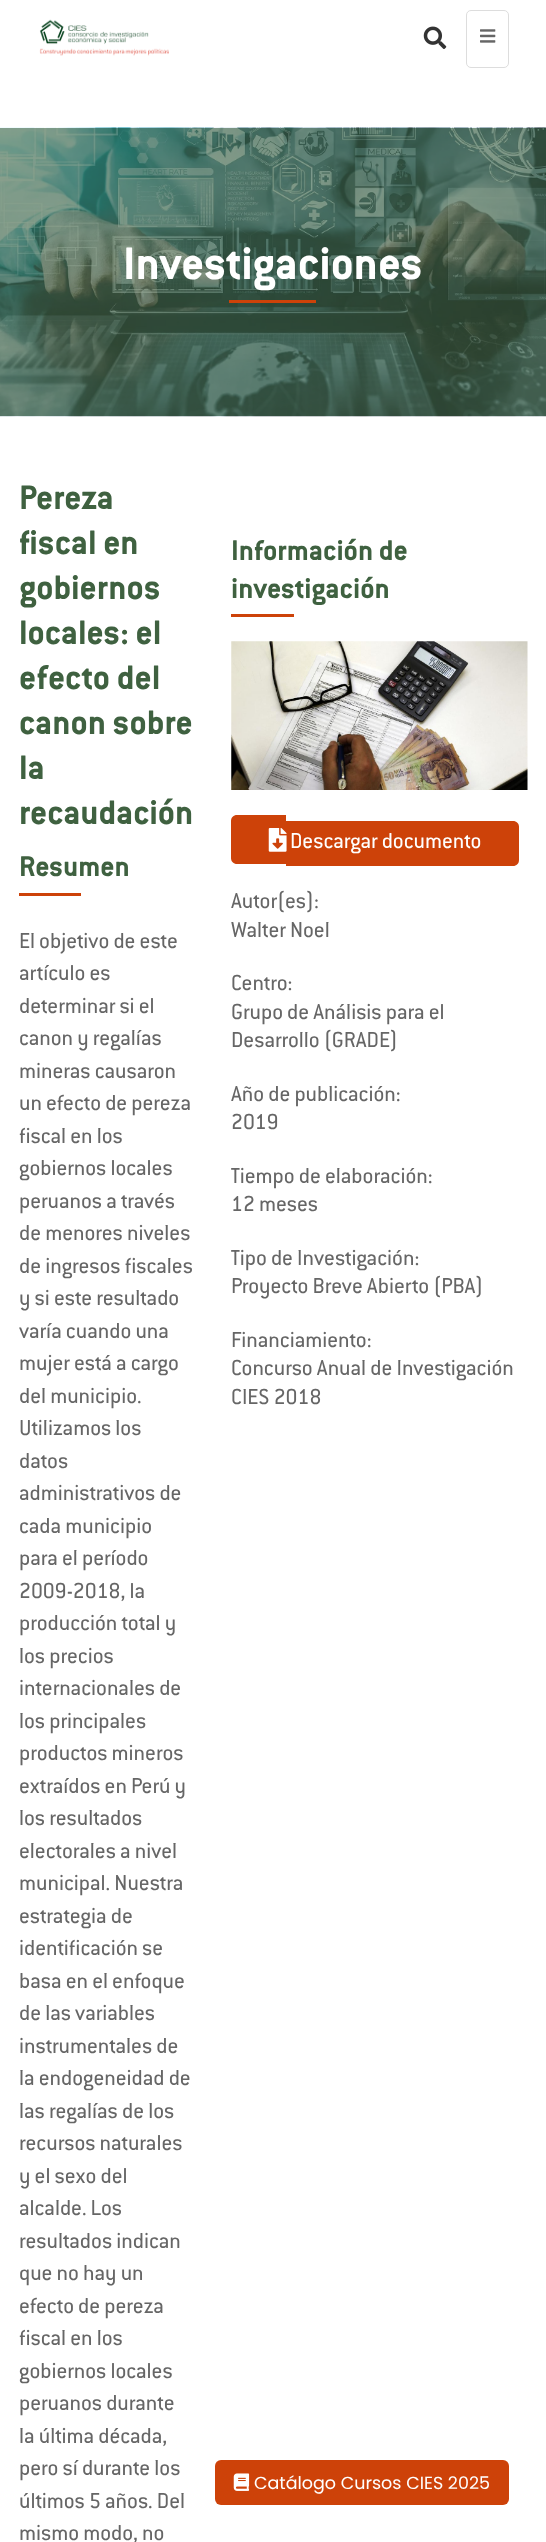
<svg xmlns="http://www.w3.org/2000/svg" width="546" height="2542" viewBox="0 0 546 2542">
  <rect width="100%" height="100%" fill="rgb(255,255,255)"/>
  <image x="39" y="19" width="130" height="37" href="pic1.png"/>
  <rect x="466.5" y="10.5" width="42" height="57" rx="4.5" fill="none" stroke="rgb(221,221,221)"/>
  <image x="480" y="29" width="16" height="14" href="pic2.png"/>
  <image x="423" y="26" width="24" height="23" href="pic3.png"/>
  <image x="0" y="127" width="546" height="290" href="pic4.png"/>
  <text x="123" y="279" font-family="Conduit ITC" font-size="50" font-weight="bold" fill="rgb(255,255,255)">Investigaciones</text>
  <rect x="229" y="300" width="87" height="3" fill="rgb(205,66,9)"/>
  <g font-family="Conduit ITC" font-size="37.5" font-weight="bold" fill="rgb(63,97,64)">
    <text>
      <tspan x="19" y="509">Pereza</tspan>
      <tspan x="19" y="554">fiscal en</tspan>
      <tspan x="19" y="599">gobiernos</tspan>
      <tspan x="19" y="644">locales: el</tspan>
      <tspan x="19" y="689">efecto del</tspan>
      <tspan x="19" y="734">canon sobre</tspan>
      <tspan x="19" y="779">la</tspan>
      <tspan x="19" y="824">recaudación</tspan>
    </text>
  </g>
  <text x="19" y="876" font-family="Conduit ITC" font-size="31.25" font-weight="bold" fill="rgb(63,97,64)">Resumen</text>
  <rect x="19" y="893" width="62" height="3" fill="rgb(205,66,9)"/>
  <g font-family="Conduit ITC" font-size="23.75" fill="rgb(102,102,102)">
    <text>
      <tspan x="19" y="948">El objetivo de este</tspan>
      <tspan x="19" y="980">artículo es</tspan>
      <tspan x="19" y="1013">determinar si el</tspan>
      <tspan x="19" y="1045">canon y regalías</tspan>
      <tspan x="19" y="1078">mineras causaron</tspan>
      <tspan x="19" y="1110">un efecto de pereza</tspan>
      <tspan x="19" y="1143">fiscal en los</tspan>
      <tspan x="19" y="1175">gobiernos locales</tspan>
      <tspan x="19" y="1208">peruanos a través</tspan>
      <tspan x="19" y="1240">de menores niveles</tspan>
      <tspan x="19" y="1273">de ingresos fiscales</tspan>
      <tspan x="19" y="1305">y si este resultado</tspan>
      <tspan x="19" y="1338">varía cuando una</tspan>
      <tspan x="19" y="1370">mujer está a cargo</tspan>
      <tspan x="19" y="1403">del municipio.</tspan>
      <tspan x="19" y="1435">Utilizamos los</tspan>
      <tspan x="19" y="1468">datos</tspan>
      <tspan x="19" y="1500">administrativos de</tspan>
      <tspan x="19" y="1533">cada municipio</tspan>
      <tspan x="19" y="1565">para el período</tspan>
      <tspan x="19" y="1598">2009-2018, la</tspan>
      <tspan x="19" y="1630">producción total y</tspan>
      <tspan x="19" y="1663">los precios</tspan>
      <tspan x="19" y="1695">internacionales de</tspan>
      <tspan x="19" y="1728">los principales</tspan>
      <tspan x="19" y="1760">productos mineros</tspan>
      <tspan x="19" y="1793">extraídos en Perú y</tspan>
      <tspan x="19" y="1825">los resultados</tspan>
      <tspan x="19" y="1858">electorales a nivel</tspan>
      <tspan x="19" y="1890">municipal. Nuestra</tspan>
      <tspan x="19" y="1923">estrategia de</tspan>
      <tspan x="19" y="1955">identificación se</tspan>
      <tspan x="19" y="1988">basa en el enfoque</tspan>
      <tspan x="19" y="2020">de las variables</tspan>
      <tspan x="19" y="2053">instrumentales de</tspan>
      <tspan x="19" y="2085">la endogeneidad de</tspan>
      <tspan x="19" y="2118">las regalías de los</tspan>
      <tspan x="19" y="2150">recursos naturales</tspan>
      <tspan x="19" y="2183">y el sexo del</tspan>
      <tspan x="19" y="2215">alcalde. Los</tspan>
      <tspan x="19" y="2248">resultados indican</tspan>
      <tspan x="19" y="2280">que no hay un</tspan>
      <tspan x="19" y="2313">efecto de pereza</tspan>
      <tspan x="19" y="2345">fiscal en los</tspan>
      <tspan x="19" y="2378">gobiernos locales</tspan>
      <tspan x="19" y="2410">peruanos durante</tspan>
      <tspan x="19" y="2443">la última década,</tspan>
      <tspan x="19" y="2475">pero sí durante los</tspan>
      <tspan x="19" y="2508">últimos 5 años. Del</tspan>
      <tspan x="19" y="2540">mismo modo, no</tspan>
    </text>
  </g>
  <g font-family="Conduit ITC" font-size="31.25" font-weight="bold" fill="rgb(63,97,64)">
    <text>
      <tspan x="231" y="560">Información de</tspan>
      <tspan x="231" y="598">investigación</tspan>
    </text>
  </g>
  <rect x="231" y="614" width="63" height="3" fill="rgb(205,66,9)"/>
  <image x="231" y="641" width="297" height="149" href="pic5.png"/>
  <path d="M237 815H286V864H237C233.5 864 231 861.5 231 858V821C231 817.5 233.5 815 237 815Z" fill="rgb(205,66,9)"/>
  <path d="M286 821H513C516.5 821 519 823.5 519 827V860C519 863.5 516.5 866 513 866H286Z" fill="rgb(205,66,9)"/>
  <image x="268" y="828" width="19" height="24" href="pic6.png"/>
  <text x="290" y="848" font-family="Conduit ITC" font-size="23.75" fill="rgb(255,255,255)">Descargar documento</text>
  <g font-family="Conduit ITC" font-size="23.75" fill="rgb(102,102,102)">
    <text>
      <tspan x="231" y="908">Autor(es):</tspan>
      <tspan x="231" y="937">Walter Noel</tspan>
    </text>
    <text>
      <tspan x="231" y="990">Centro:</tspan>
      <tspan x="231" y="1019">Grupo de Análisis para el</tspan>
      <tspan x="231" y="1047">Desarrollo (GRADE)</tspan>
    </text>
    <text>
      <tspan x="231" y="1101">Año de publicación:</tspan>
      <tspan x="231" y="1129">2019</tspan>
    </text>
    <text>
      <tspan x="231" y="1183">Tiempo de elaboración:</tspan>
      <tspan x="231" y="1211">12 meses</tspan>
    </text>
    <text>
      <tspan x="231" y="1265">Tipo de Investigación:</tspan>
      <tspan x="231" y="1293">Proyecto Breve Abierto (PBA)</tspan>
    </text>
    <text>
      <tspan x="231" y="1347">Financiamiento:</tspan>
      <tspan x="231" y="1375">Concurso Anual de Investigación</tspan>
      <tspan x="231" y="1404">CIES 2018</tspan>
    </text>
  </g>
  <rect x="215" y="2460" width="294" height="45" rx="6" fill="rgb(205,66,9)"/>
  <image x="233" y="2473" width="17" height="18" href="pic7.png"/>
  <text x="254" y="2489" font-family="Poppins" font-size="17.5" fill="rgb(255,255,255)">Catálogo Cursos CIES 2025</text>
</svg>
